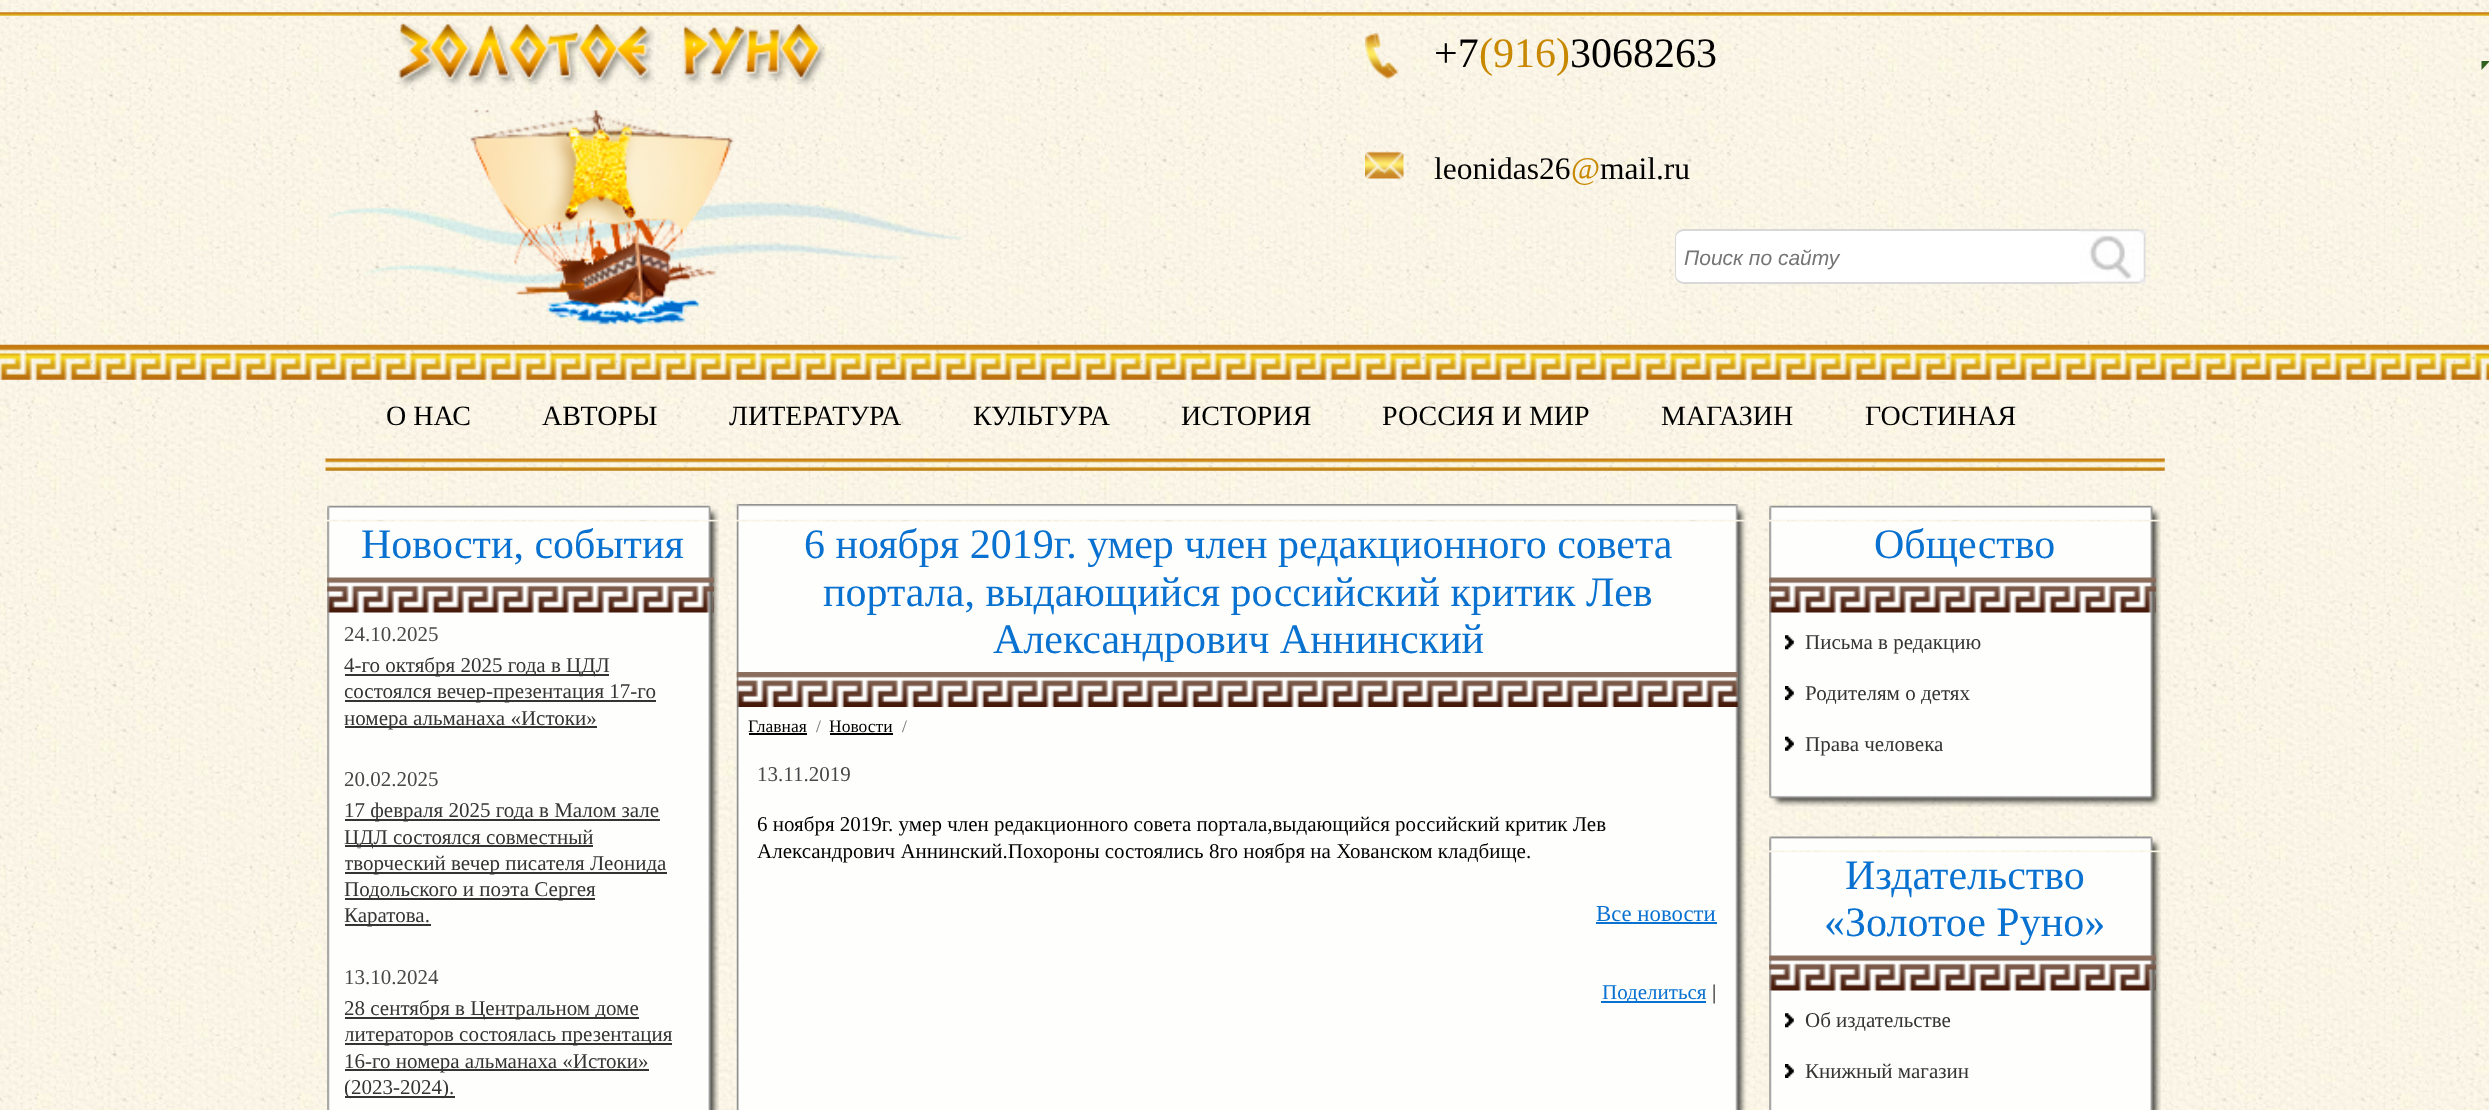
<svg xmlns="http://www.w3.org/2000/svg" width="2489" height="1110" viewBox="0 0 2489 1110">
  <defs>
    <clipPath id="clip1"><rect x="345" y="621" width="339" height="111"/></clipPath>
    <clipPath id="clip2"><rect x="345" y="767" width="339" height="162"/></clipPath>
    <clipPath id="clip3"><rect x="345" y="964" width="339" height="137"/></clipPath>
  </defs>
  <rect width="100%" height="100%" fill="rgb(255,255,255)"/>
  <image x="0" y="0" width="2489" height="1110" href="pic1.png"/>
  <image x="0" y="12" width="2489" height="4" href="pic2.png"/>
  <image x="327" y="22" width="636" height="304" href="pic3.png"/>
  <image x="1365" y="33" width="39" height="146" href="pic4.png"/>
  <text x="1434" y="67" font-family="Liberation Serif" font-size="42" fill="rgb(0,0,0)">+7</text>
  <text x="1479" y="67" font-family="Liberation Serif" font-size="42" fill="rgb(200,136,0)">(916)</text>
  <text x="1570" y="67" font-family="Liberation Serif" font-size="42" fill="rgb(0,0,0)">3068263</text>
  <text x="1434" y="179" font-family="Liberation Serif" font-size="31.5" fill="rgb(0,0,0)">leonidas26</text>
  <text x="1571" y="179" font-family="Liberation Serif" font-size="31.5" fill="rgb(200,136,0)">@</text>
  <text x="1600" y="179" font-family="Liberation Serif" font-size="31.5" fill="rgb(0,0,0)">mail.ru</text>
  <path d="M1684 229H2079V284H1684C1679 284 1675 280 1675 275V238C1675 233 1679 229 1684 229Z" fill="rgb(255,255,255)"/>
  <path d="M1684 229H2079V284H1684C1679 284 1675 280 1675 275V238C1675 233 1679 229 1684 229ZM1684 231H2079V282H1684C1680 282 1676 279 1676 275V238C1676 234 1680 231 1684 231Z" fill="rgb(216,216,216)" fill-rule="evenodd"/>
  <text x="1684" y="265" font-family="Liberation Sans" font-size="21" font-style="italic" fill="rgb(117,117,117)">Поиск по сайту</text>
  <image x="2079" y="229" width="67" height="55" href="pic5.png"/>
  <image x="0" y="344" width="2489" height="36" href="pic6.png"/>
  <g font-family="Liberation Serif" font-size="28" fill="rgb(0,0,0)">
    <text x="386" y="425">О НАС</text>
    <text x="542" y="425">АВТОРЫ</text>
    <text x="729" y="425">ЛИТЕРАТУРА</text>
    <text x="973" y="425">КУЛЬТУРА</text>
    <text x="1181" y="425">ИСТОРИЯ</text>
    <text x="1382" y="425">РОССИЯ И МИР</text>
    <text x="1661" y="425">МАГАЗИН</text>
    <text x="1865" y="425">ГОСТИНАЯ</text>
  </g>
  <image x="325" y="458" width="1840" height="13" href="pic7.png"/>
  <image x="327" y="505" width="392" height="15" href="pic8.png"/>
  <image x="327" y="521" width="392" height="589" href="pic9.png"/>
  <text x="361" y="558" font-family="Liberation Serif" font-size="42" fill="rgb(9,113,208)">Новости, события</text>
  <image x="327" y="577" width="387" height="36" href="pic10.png"/>
  <text x="344" y="641" font-family="Liberation Serif" font-size="21" fill="rgb(71,71,71)">24.10.2025</text>
  <rect x="345" y="674" width="264" height="2" fill="rgb(52,52,52)"/>
  <text x="344" y="672" font-family="Liberation Serif" font-size="21" fill="rgb(52,52,52)">4-го октября 2025 года в ЦДЛ</text>
  <rect x="345" y="700" width="311" height="2" fill="rgb(52,52,52)"/>
  <g clip-path="url(#clip1)">
    <text x="344" y="698" font-family="Liberation Serif" font-size="21" fill="rgb(52,52,52)">состоялся вечер-презентация 17-го</text>
  </g>
  <rect x="345" y="726" width="252" height="2" fill="rgb(52,52,52)"/>
  <text x="344" y="725" font-family="Liberation Serif" font-size="21" fill="rgb(52,52,52)">номера альманаха «Истоки»</text>
  <text x="344" y="786" font-family="Liberation Serif" font-size="21" fill="rgb(71,71,71)">20.02.2025</text>
  <rect x="345" y="819" width="315" height="2" fill="rgb(52,52,52)"/>
  <text x="344" y="817" font-family="Liberation Serif" font-size="21" fill="rgb(52,52,52)">17 февраля 2025 года в Малом зале</text>
  <rect x="345" y="845" width="248" height="2" fill="rgb(52,52,52)"/>
  <text x="344" y="844" font-family="Liberation Serif" font-size="21" fill="rgb(52,52,52)">ЦДЛ состоялся совместный</text>
  <rect x="345" y="872" width="322" height="2" fill="rgb(52,52,52)"/>
  <g clip-path="url(#clip2)">
    <text x="344" y="870" font-family="Liberation Serif" font-size="21" fill="rgb(52,52,52)">творческий вечер писателя Леонида</text>
  </g>
  <rect x="345" y="898" width="250" height="2" fill="rgb(52,52,52)"/>
  <text x="344" y="896" font-family="Liberation Serif" font-size="21" fill="rgb(52,52,52)">Подольского и поэта Сергея</text>
  <rect x="345" y="924" width="86" height="2" fill="rgb(52,52,52)"/>
  <text x="344" y="922" font-family="Liberation Serif" font-size="21" fill="rgb(52,52,52)">Каратова.</text>
  <text x="344" y="984" font-family="Liberation Serif" font-size="21" fill="rgb(71,71,71)">13.10.2024</text>
  <rect x="345" y="1017" width="294" height="2" fill="rgb(52,52,52)"/>
  <text x="344" y="1015" font-family="Liberation Serif" font-size="21" fill="rgb(52,52,52)">28 сентября в Центральном доме</text>
  <rect x="345" y="1043" width="327" height="2" fill="rgb(52,52,52)"/>
  <g clip-path="url(#clip3)">
    <text x="344" y="1041" font-family="Liberation Serif" font-size="21" fill="rgb(52,52,52)">литераторов состоялась презентация</text>
  </g>
  <rect x="345" y="1069" width="304" height="2" fill="rgb(52,52,52)"/>
  <text x="344" y="1068" font-family="Liberation Serif" font-size="21" fill="rgb(52,52,52)">16-го номера альманаха «Истоки»</text>
  <rect x="345" y="1096" width="110" height="2" fill="rgb(52,52,52)"/>
  <g clip-path="url(#clip3)">
    <text x="344" y="1094" font-family="Liberation Serif" font-size="21" fill="rgb(52,52,52)">(2023-2024).</text>
  </g>
  <image x="736" y="504" width="1011" height="16" href="pic11.png"/>
  <image x="736" y="521" width="1011" height="589" href="pic12.png"/>
  <g font-family="Liberation Serif" font-size="42" fill="rgb(9,113,208)">
    <text x="804" y="558">6 ноября 2019г. умер член редакционного совета</text>
    <text x="823" y="606">портала, выдающийся российский критик Лев</text>
    <text x="993" y="653">Александрович Аннинский</text>
  </g>
  <image x="736" y="672" width="1002" height="35" href="pic13.png"/>
  <text x="748" y="732" font-family="Liberation Serif" font-size="17.5" fill="rgb(0,0,0)">Главная</text>
  <rect x="749" y="733" width="58" height="2" fill="rgb(0,0,0)"/>
  <text x="816" y="732" font-family="Liberation Serif" font-size="17.5" fill="rgb(107,107,107)">/</text>
  <text x="829" y="732" font-family="Liberation Serif" font-size="17.5" fill="rgb(0,0,0)">Новости</text>
  <rect x="830" y="733" width="63" height="2" fill="rgb(0,0,0)"/>
  <text x="902" y="732" font-family="Liberation Serif" font-size="17.5" fill="rgb(107,107,107)">/</text>
  <text x="757" y="781" font-family="Liberation Serif" font-size="21" fill="rgb(71,71,71)">13.11.2019</text>
  <g font-family="Liberation Serif" font-size="21" fill="rgb(0,0,0)">
    <text>
      <tspan x="757" y="831">6 ноября 2019г. умер член редакционного совета портала,выдающийся российский критик Лев</tspan>
      <tspan x="757" y="858">Александрович Аннинский.Похороны состоялись 8го ноября на Хованском кладбище.</tspan>
    </text>
  </g>
  <text x="1596" y="921" font-family="Liberation Serif" font-size="22.75" fill="rgb(9,113,208)">Все новости</text>
  <rect x="1596" y="922" width="121" height="2" fill="rgb(9,113,208)"/>
  <rect x="1601" y="1001" width="105" height="2" fill="rgb(9,113,208)"/>
  <text x="1602" y="999" font-family="Liberation Serif" font-size="21" fill="rgb(9,113,208)">Поделиться</text>
  <text x="1712" y="999" font-family="Liberation Serif" font-size="21" fill="rgb(0,0,0)">|</text>
  <path d="M2481.5 70V61H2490Z" fill="rgb(49,97,30)"/>
  <image x="1769" y="505" width="392" height="15" href="pic14.png"/>
  <image x="1769" y="521" width="392" height="263" href="pic15.png"/>
  <text x="1874" y="558" font-family="Liberation Serif" font-size="42" fill="rgb(9,113,208)">Общество</text>
  <image x="1769" y="577" width="387" height="36" href="pic16.png"/>
  <image x="1785" y="635" width="9" height="15" href="pic17.png"/>
  <text x="1805" y="649" font-family="Liberation Serif" font-size="21" fill="rgb(52,52,52)">Письма в редакцию</text>
  <image x="1785" y="686" width="9" height="14" href="pic18.png"/>
  <text x="1805" y="700" font-family="Liberation Serif" font-size="21" fill="rgb(52,52,52)">Родителям о детях</text>
  <image x="1785" y="736" width="9" height="15" href="pic19.png"/>
  <text x="1805" y="751" font-family="Liberation Serif" font-size="21" fill="rgb(52,52,52)">Права человека</text>
  <image x="1769" y="784" width="392" height="23" href="pic20.png"/>
  <image x="1769" y="836" width="392" height="15" href="pic21.png"/>
  <image x="1769" y="852" width="392" height="258" href="pic22.png"/>
  <g font-family="Liberation Serif" font-size="42" fill="rgb(9,113,208)">
    <text x="1845" y="889">Издательство</text>
    <text x="1824" y="936">«Золотое Руно»</text>
  </g>
  <image x="1769" y="955" width="387" height="36" href="pic23.png"/>
  <image x="1785" y="1013" width="9" height="15" href="pic24.png"/>
  <text x="1805" y="1027" font-family="Liberation Serif" font-size="21" fill="rgb(52,52,52)">Об издательстве</text>
  <image x="1785" y="1064" width="9" height="14" href="pic25.png"/>
  <text x="1805" y="1078" font-family="Liberation Serif" font-size="21" fill="rgb(52,52,52)">Книжный магазин</text>
</svg>
